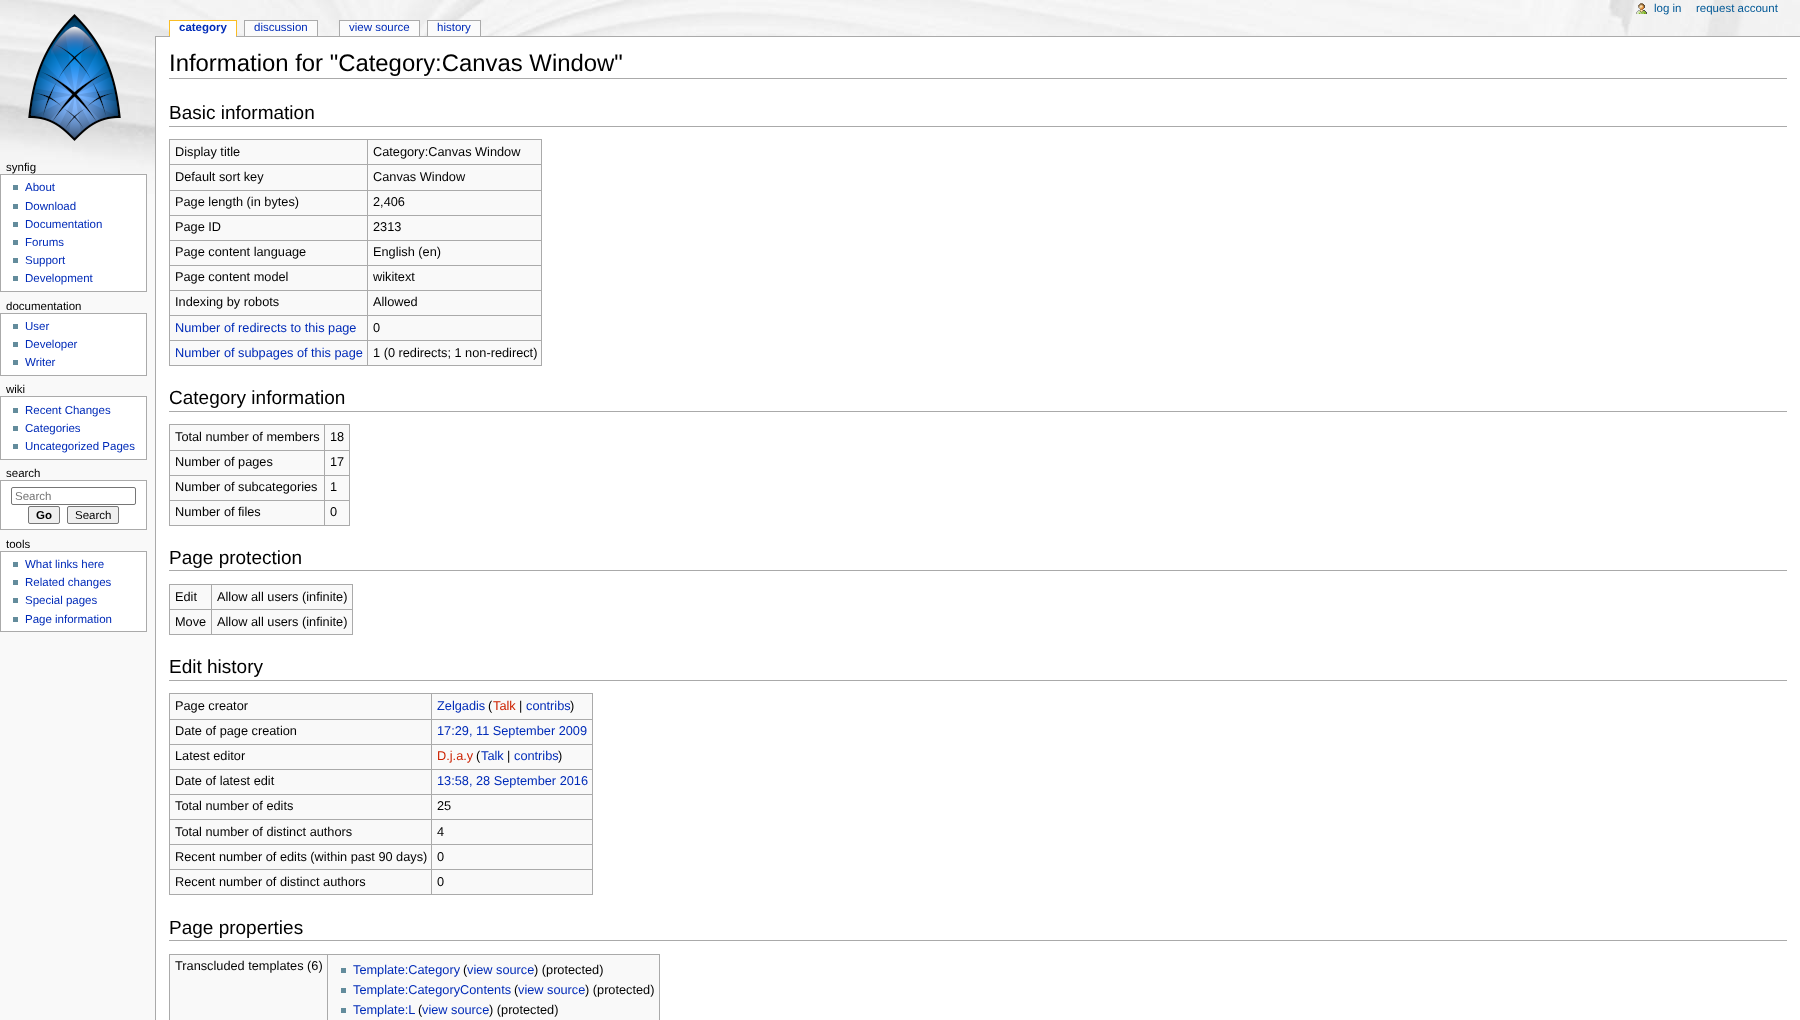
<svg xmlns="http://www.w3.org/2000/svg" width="1800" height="1020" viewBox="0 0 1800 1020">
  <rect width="100%" height="100%" fill="rgb(249,249,249)"/>
  <image x="0" y="0" width="1800" height="194" href="pic1.png"/>
  <image x="1636" y="3" width="11" height="11" href="pic2.png"/>
  <g font-family="Liberation Sans" font-size="11.5" fill="rgb(0,88,150)">
    <text x="1654" y="12">log in</text>
    <text x="1696" y="12">request account</text>
  </g>
  <image x="28" y="14" width="93" height="127" href="pic3.png"/>
  <rect x="155" y="36" width="1645" height="1" fill="rgb(170,170,170)"/>
  <rect x="170" y="21" width="66" height="16" fill="rgb(255,255,255)"/>
  <text x="179" y="31" font-family="Liberation Sans" font-size="11.5" font-weight="bold" fill="rgb(0,43,184)">category</text>
  <rect x="169" y="20" width="68" height="1" fill="rgb(250,189,35)"/>
  <rect x="236" y="20" width="1" height="16" fill="rgb(250,189,35)"/>
  <rect x="169" y="20" width="1" height="16" fill="rgb(250,189,35)"/>
  <rect x="245" y="21" width="72" height="15" fill="rgb(251,251,251)"/>
  <text x="254" y="31" font-family="Liberation Sans" font-size="11.5" fill="rgb(0,43,184)">discussion</text>
  <rect x="244" y="20" width="74" height="1" fill="rgb(170,170,170)"/>
  <rect x="317" y="20" width="1" height="16" fill="rgb(170,170,170)"/>
  <rect x="244" y="20" width="1" height="16" fill="rgb(170,170,170)"/>
  <rect x="340" y="21" width="79" height="15" fill="rgb(251,251,251)"/>
  <text x="349" y="31" font-family="Liberation Sans" font-size="11.5" fill="rgb(0,43,184)">view source</text>
  <rect x="339" y="20" width="81" height="1" fill="rgb(170,170,170)"/>
  <rect x="419" y="20" width="1" height="16" fill="rgb(170,170,170)"/>
  <rect x="339" y="20" width="1" height="16" fill="rgb(170,170,170)"/>
  <rect x="428" y="21" width="52" height="15" fill="rgb(251,251,251)"/>
  <text x="437" y="31" font-family="Liberation Sans" font-size="11.5" fill="rgb(0,43,184)">history</text>
  <rect x="427" y="20" width="54" height="1" fill="rgb(170,170,170)"/>
  <rect x="480" y="20" width="1" height="16" fill="rgb(170,170,170)"/>
  <rect x="427" y="20" width="1" height="16" fill="rgb(170,170,170)"/>
  <text x="6" y="171" font-family="Liberation Sans" font-size="11.5" fill="rgb(0,0,0)">synfig</text>
  <rect x="0.5" y="174.5" width="146" height="117" fill="rgb(255,255,255)" stroke="rgb(170,170,170)"/>
  <rect x="13" y="185" width="5" height="5" fill="rgb(99,140,156)"/>
  <text x="25" y="191" font-family="Liberation Sans" font-size="11.5" fill="rgb(0,43,184)">About</text>
  <rect x="13" y="204" width="5" height="5" fill="rgb(99,140,156)"/>
  <text x="25" y="210" font-family="Liberation Sans" font-size="11.5" fill="rgb(0,43,184)">Download</text>
  <rect x="13" y="222" width="5" height="5" fill="rgb(99,140,156)"/>
  <text x="25" y="228" font-family="Liberation Sans" font-size="11.5" fill="rgb(0,43,184)">Documentation</text>
  <rect x="13" y="240" width="5" height="5" fill="rgb(99,140,156)"/>
  <text x="25" y="246" font-family="Liberation Sans" font-size="11.5" fill="rgb(0,43,184)">Forums</text>
  <rect x="13" y="258" width="5" height="5" fill="rgb(99,140,156)"/>
  <text x="25" y="264" font-family="Liberation Sans" font-size="11.5" fill="rgb(0,43,184)">Support</text>
  <rect x="13" y="276" width="5" height="5" fill="rgb(99,140,156)"/>
  <text x="25" y="282" font-family="Liberation Sans" font-size="11.5" fill="rgb(0,43,184)">Development</text>
  <text x="6" y="310" font-family="Liberation Sans" font-size="11.5" fill="rgb(0,0,0)">documentation</text>
  <rect x="0.5" y="313.5" width="146" height="62" fill="rgb(255,255,255)" stroke="rgb(170,170,170)"/>
  <rect x="13" y="324" width="5" height="5" fill="rgb(99,140,156)"/>
  <text x="25" y="330" font-family="Liberation Sans" font-size="11.5" fill="rgb(0,43,184)">User</text>
  <rect x="13" y="342" width="5" height="5" fill="rgb(99,140,156)"/>
  <text x="25" y="348" font-family="Liberation Sans" font-size="11.5" fill="rgb(0,43,184)">Developer</text>
  <rect x="13" y="360" width="5" height="5" fill="rgb(99,140,156)"/>
  <text x="25" y="366" font-family="Liberation Sans" font-size="11.5" fill="rgb(0,43,184)">Writer</text>
  <text x="6" y="393" font-family="Liberation Sans" font-size="11.5" fill="rgb(0,0,0)">wiki</text>
  <rect x="0.5" y="396.5" width="146" height="63" fill="rgb(255,255,255)" stroke="rgb(170,170,170)"/>
  <rect x="13" y="408" width="5" height="5" fill="rgb(99,140,156)"/>
  <text x="25" y="414" font-family="Liberation Sans" font-size="11.5" fill="rgb(0,43,184)">Recent Changes</text>
  <rect x="13" y="426" width="5" height="5" fill="rgb(99,140,156)"/>
  <text x="25" y="432" font-family="Liberation Sans" font-size="11.5" fill="rgb(0,43,184)">Categories</text>
  <rect x="13" y="444" width="5" height="5" fill="rgb(99,140,156)"/>
  <text x="25" y="450" font-family="Liberation Sans" font-size="11.5" fill="rgb(0,43,184)">Uncategorized Pages</text>
  <text x="6" y="477" font-family="Liberation Sans" font-size="11.5" fill="rgb(0,0,0)">search</text>
  <rect x="0.5" y="480.5" width="146" height="49" fill="rgb(255,255,255)" stroke="rgb(170,170,170)"/>
  <rect x="11.5" y="487.5" width="124" height="17" rx="1.5" fill="none" stroke="rgb(118,118,118)"/>
  <text x="15" y="500" font-family="Liberation Sans" font-size="11.5" fill="rgb(117,117,117)">Search</text>
  <rect x="28.5" y="506.5" width="31" height="17" rx="1.5" fill="rgb(239,239,239)" stroke="rgb(118,118,118)"/>
  <text x="36" y="519" font-family="Liberation Sans" font-size="11.5" font-weight="bold" fill="rgb(0,0,0)">Go</text>
  <rect x="67.5" y="506.5" width="51" height="17" rx="1.5" fill="rgb(239,239,239)" stroke="rgb(118,118,118)"/>
  <g font-family="Liberation Sans" font-size="11.5" fill="rgb(0,0,0)">
    <text x="75" y="519">Search</text>
    <text x="6" y="548">tools</text>
  </g>
  <rect x="0.5" y="551.5" width="146" height="80" fill="rgb(255,255,255)" stroke="rgb(170,170,170)"/>
  <rect x="13" y="562" width="5" height="5" fill="rgb(99,140,156)"/>
  <text x="25" y="568" font-family="Liberation Sans" font-size="11.5" fill="rgb(0,43,184)">What links here</text>
  <rect x="13" y="580" width="5" height="5" fill="rgb(99,140,156)"/>
  <text x="25" y="586" font-family="Liberation Sans" font-size="11.5" fill="rgb(0,43,184)">Related changes</text>
  <rect x="13" y="598" width="5" height="5" fill="rgb(99,140,156)"/>
  <text x="25" y="604" font-family="Liberation Sans" font-size="11.5" fill="rgb(0,43,184)">Special pages</text>
  <rect x="13" y="617" width="5" height="5" fill="rgb(99,140,156)"/>
  <text x="25" y="623" font-family="Liberation Sans" font-size="11.5" fill="rgb(0,43,184)">Page information</text>
  <rect x="156" y="37" width="1644" height="983" fill="rgb(255,255,255)"/>
  <rect x="155" y="36" width="1" height="984" fill="rgb(170,170,170)"/>
  <rect x="169" y="78" width="1618" height="1" fill="rgb(170,170,170)"/>
  <text x="169" y="71" font-family="Liberation Sans" font-size="23.9" fill="rgb(0,0,0)">Information for "Category:Canvas Window"</text>
  <rect x="169" y="126" width="1618" height="1" fill="rgb(170,170,170)"/>
  <text x="169" y="119" font-family="Liberation Sans" font-size="19" fill="rgb(0,0,0)">Basic information</text>
  <rect x="170" y="140" width="371" height="225" fill="rgb(249,249,249)"/>
  <rect x="169" y="139" width="373" height="1" fill="rgb(170,170,170)"/>
  <rect x="541" y="139" width="1" height="227" fill="rgb(170,170,170)"/>
  <rect x="169" y="365" width="373" height="1" fill="rgb(170,170,170)"/>
  <rect x="169" y="139" width="1" height="227" fill="rgb(170,170,170)"/>
  <text x="175" y="156" font-family="Liberation Sans" font-size="12.75" fill="rgb(0,0,0)">Display title</text>
  <rect x="367" y="164" width="175" height="1" fill="rgb(170,170,170)"/>
  <rect x="367" y="190" width="175" height="1" fill="rgb(170,170,170)"/>
  <rect x="367" y="215" width="175" height="1" fill="rgb(170,170,170)"/>
  <rect x="367" y="240" width="175" height="1" fill="rgb(170,170,170)"/>
  <rect x="367" y="265" width="175" height="1" fill="rgb(170,170,170)"/>
  <rect x="367" y="290" width="175" height="1" fill="rgb(170,170,170)"/>
  <rect x="367" y="315" width="175" height="1" fill="rgb(170,170,170)"/>
  <rect x="367" y="340" width="175" height="1" fill="rgb(170,170,170)"/>
  <rect x="367" y="340" width="1" height="26" fill="rgb(170,170,170)"/>
  <rect x="169" y="340" width="199" height="1" fill="rgb(170,170,170)"/>
  <rect x="367" y="315" width="1" height="26" fill="rgb(170,170,170)"/>
  <rect x="169" y="315" width="199" height="1" fill="rgb(170,170,170)"/>
  <rect x="367" y="290" width="1" height="26" fill="rgb(170,170,170)"/>
  <rect x="169" y="290" width="199" height="1" fill="rgb(170,170,170)"/>
  <rect x="367" y="265" width="1" height="26" fill="rgb(170,170,170)"/>
  <rect x="169" y="265" width="199" height="1" fill="rgb(170,170,170)"/>
  <rect x="367" y="240" width="1" height="26" fill="rgb(170,170,170)"/>
  <rect x="169" y="240" width="199" height="1" fill="rgb(170,170,170)"/>
  <rect x="367" y="215" width="1" height="26" fill="rgb(170,170,170)"/>
  <rect x="169" y="215" width="199" height="1" fill="rgb(170,170,170)"/>
  <rect x="367" y="190" width="1" height="26" fill="rgb(170,170,170)"/>
  <rect x="169" y="190" width="199" height="1" fill="rgb(170,170,170)"/>
  <rect x="367" y="164" width="1" height="27" fill="rgb(170,170,170)"/>
  <rect x="169" y="164" width="199" height="1" fill="rgb(170,170,170)"/>
  <rect x="367" y="139" width="1" height="26" fill="rgb(170,170,170)"/>
  <g font-family="Liberation Sans" font-size="12.75" fill="rgb(0,0,0)">
    <text x="373" y="156">Category:Canvas Window</text>
    <text x="175" y="181">Default sort key</text>
    <text x="373" y="181">Canvas Window</text>
    <text x="175" y="206">Page length (in bytes)</text>
    <text x="373" y="206">2,406</text>
    <text x="175" y="231">Page ID</text>
    <text x="373" y="231">2313</text>
    <text x="175" y="256">Page content language</text>
    <text x="373" y="256">English (en)</text>
    <text x="175" y="281">Page content model</text>
    <text x="373" y="281">wikitext</text>
    <text x="175" y="306">Indexing by robots</text>
    <text x="373" y="306">Allowed</text>
  </g>
  <text x="175" y="332" font-family="Liberation Sans" font-size="12.75" fill="rgb(0,43,184)">Number of redirects to this page</text>
  <text x="373" y="332" font-family="Liberation Sans" font-size="12.75" fill="rgb(0,0,0)">0</text>
  <text x="175" y="357" font-family="Liberation Sans" font-size="12.75" fill="rgb(0,43,184)">Number of subpages of this page</text>
  <text x="373" y="357" font-family="Liberation Sans" font-size="12.75" fill="rgb(0,0,0)">1 (0 redirects; 1 non-redirect)</text>
  <rect x="169" y="411" width="1618" height="1" fill="rgb(170,170,170)"/>
  <text x="169" y="404" font-family="Liberation Sans" font-size="19" fill="rgb(0,0,0)">Category information</text>
  <rect x="170" y="425" width="179" height="100" fill="rgb(249,249,249)"/>
  <rect x="169" y="424" width="181" height="1" fill="rgb(170,170,170)"/>
  <rect x="349" y="424" width="1" height="102" fill="rgb(170,170,170)"/>
  <rect x="169" y="525" width="181" height="1" fill="rgb(170,170,170)"/>
  <rect x="169" y="424" width="1" height="102" fill="rgb(170,170,170)"/>
  <text x="175" y="441" font-family="Liberation Sans" font-size="12.75" fill="rgb(0,0,0)">Total number of members</text>
  <rect x="324" y="450" width="26" height="1" fill="rgb(170,170,170)"/>
  <rect x="324" y="475" width="26" height="1" fill="rgb(170,170,170)"/>
  <rect x="324" y="500" width="26" height="1" fill="rgb(170,170,170)"/>
  <rect x="324" y="500" width="1" height="26" fill="rgb(170,170,170)"/>
  <rect x="169" y="500" width="156" height="1" fill="rgb(170,170,170)"/>
  <rect x="324" y="475" width="1" height="26" fill="rgb(170,170,170)"/>
  <rect x="169" y="475" width="156" height="1" fill="rgb(170,170,170)"/>
  <rect x="324" y="450" width="1" height="26" fill="rgb(170,170,170)"/>
  <rect x="169" y="450" width="156" height="1" fill="rgb(170,170,170)"/>
  <rect x="324" y="424" width="1" height="27" fill="rgb(170,170,170)"/>
  <g font-family="Liberation Sans" font-size="12.75" fill="rgb(0,0,0)">
    <text x="330" y="441">18</text>
    <text x="175" y="466">Number of pages</text>
    <text x="330" y="466">17</text>
    <text x="175" y="491">Number of subcategories</text>
    <text x="330" y="491">1</text>
    <text x="175" y="516">Number of files</text>
    <text x="330" y="516">0</text>
  </g>
  <rect x="169" y="570" width="1618" height="1" fill="rgb(170,170,170)"/>
  <text x="169" y="564" font-family="Liberation Sans" font-size="19" fill="rgb(0,0,0)">Page protection</text>
  <rect x="170" y="585" width="182" height="49" fill="rgb(249,249,249)"/>
  <rect x="169" y="584" width="184" height="1" fill="rgb(170,170,170)"/>
  <rect x="352" y="584" width="1" height="51" fill="rgb(170,170,170)"/>
  <rect x="169" y="634" width="184" height="1" fill="rgb(170,170,170)"/>
  <rect x="169" y="584" width="1" height="51" fill="rgb(170,170,170)"/>
  <text x="175" y="601" font-family="Liberation Sans" font-size="12.75" fill="rgb(0,0,0)">Edit</text>
  <rect x="211" y="609" width="142" height="1" fill="rgb(170,170,170)"/>
  <rect x="211" y="609" width="1" height="26" fill="rgb(170,170,170)"/>
  <rect x="169" y="609" width="43" height="1" fill="rgb(170,170,170)"/>
  <rect x="211" y="584" width="1" height="26" fill="rgb(170,170,170)"/>
  <g font-family="Liberation Sans" font-size="12.75" fill="rgb(0,0,0)">
    <text x="217" y="601">Allow all users (infinite)</text>
    <text x="175" y="626">Move</text>
    <text x="217" y="626">Allow all users (infinite)</text>
  </g>
  <rect x="169" y="680" width="1618" height="1" fill="rgb(170,170,170)"/>
  <text x="169" y="673" font-family="Liberation Sans" font-size="19" fill="rgb(0,0,0)">Edit history</text>
  <rect x="170" y="694" width="422" height="200" fill="rgb(249,249,249)"/>
  <rect x="169" y="693" width="424" height="1" fill="rgb(170,170,170)"/>
  <rect x="592" y="693" width="1" height="202" fill="rgb(170,170,170)"/>
  <rect x="169" y="894" width="424" height="1" fill="rgb(170,170,170)"/>
  <rect x="169" y="693" width="1" height="202" fill="rgb(170,170,170)"/>
  <text x="175" y="710" font-family="Liberation Sans" font-size="12.75" fill="rgb(0,0,0)">Page creator</text>
  <rect x="431" y="719" width="162" height="1" fill="rgb(170,170,170)"/>
  <rect x="431" y="744" width="162" height="1" fill="rgb(170,170,170)"/>
  <rect x="431" y="769" width="162" height="1" fill="rgb(170,170,170)"/>
  <rect x="431" y="794" width="162" height="1" fill="rgb(170,170,170)"/>
  <rect x="431" y="819" width="162" height="1" fill="rgb(170,170,170)"/>
  <rect x="431" y="844" width="162" height="1" fill="rgb(170,170,170)"/>
  <rect x="431" y="869" width="162" height="1" fill="rgb(170,170,170)"/>
  <rect x="431" y="869" width="1" height="26" fill="rgb(170,170,170)"/>
  <rect x="169" y="869" width="263" height="1" fill="rgb(170,170,170)"/>
  <rect x="431" y="844" width="1" height="26" fill="rgb(170,170,170)"/>
  <rect x="169" y="844" width="263" height="1" fill="rgb(170,170,170)"/>
  <rect x="431" y="819" width="1" height="26" fill="rgb(170,170,170)"/>
  <rect x="169" y="819" width="263" height="1" fill="rgb(170,170,170)"/>
  <rect x="431" y="794" width="1" height="26" fill="rgb(170,170,170)"/>
  <rect x="169" y="794" width="263" height="1" fill="rgb(170,170,170)"/>
  <rect x="431" y="769" width="1" height="26" fill="rgb(170,170,170)"/>
  <rect x="169" y="769" width="263" height="1" fill="rgb(170,170,170)"/>
  <rect x="431" y="744" width="1" height="26" fill="rgb(170,170,170)"/>
  <rect x="169" y="744" width="263" height="1" fill="rgb(170,170,170)"/>
  <rect x="431" y="719" width="1" height="26" fill="rgb(170,170,170)"/>
  <rect x="169" y="719" width="263" height="1" fill="rgb(170,170,170)"/>
  <rect x="431" y="693" width="1" height="27" fill="rgb(170,170,170)"/>
  <text x="437" y="710" font-family="Liberation Sans" font-size="12.75" fill="rgb(0,43,184)">Zelgadis</text>
  <text x="488" y="710" font-family="Liberation Sans" font-size="12.75" fill="rgb(0,0,0)">(</text>
  <text x="493" y="710" font-family="Liberation Sans" font-size="12.75" fill="rgb(204,34,0)">Talk</text>
  <text x="519" y="710" font-family="Liberation Sans" font-size="12.75" fill="rgb(0,0,0)">|</text>
  <text x="526" y="710" font-family="Liberation Sans" font-size="12.75" fill="rgb(0,43,184)">contribs</text>
  <g font-family="Liberation Sans" font-size="12.75" fill="rgb(0,0,0)">
    <text x="570" y="710">)</text>
    <text x="175" y="735">Date of page creation</text>
  </g>
  <text x="437" y="735" font-family="Liberation Sans" font-size="12.75" fill="rgb(0,43,184)">17:29, 11 September 2009</text>
  <text x="175" y="760" font-family="Liberation Sans" font-size="12.75" fill="rgb(0,0,0)">Latest editor</text>
  <text x="437" y="760" font-family="Liberation Sans" font-size="12.75" fill="rgb(204,34,0)">D.j.a.y</text>
  <text x="476" y="760" font-family="Liberation Sans" font-size="12.75" fill="rgb(0,0,0)">(</text>
  <text x="481" y="760" font-family="Liberation Sans" font-size="12.75" fill="rgb(0,43,184)">Talk</text>
  <text x="507" y="760" font-family="Liberation Sans" font-size="12.75" fill="rgb(0,0,0)">|</text>
  <text x="514" y="760" font-family="Liberation Sans" font-size="12.75" fill="rgb(0,43,184)">contribs</text>
  <g font-family="Liberation Sans" font-size="12.75" fill="rgb(0,0,0)">
    <text x="558" y="760">)</text>
    <text x="175" y="785">Date of latest edit</text>
  </g>
  <text x="437" y="785" font-family="Liberation Sans" font-size="12.75" fill="rgb(0,43,184)">13:58, 28 September 2016</text>
  <g font-family="Liberation Sans" font-size="12.75" fill="rgb(0,0,0)">
    <text x="175" y="810">Total number of edits</text>
    <text x="437" y="810">25</text>
    <text x="175" y="836">Total number of distinct authors</text>
    <text x="437" y="836">4</text>
    <text x="175" y="861">Recent number of edits (within past 90 days)</text>
    <text x="437" y="861">0</text>
    <text x="175" y="886">Recent number of distinct authors</text>
    <text x="437" y="886">0</text>
  </g>
  <rect x="169" y="940" width="1618" height="1" fill="rgb(170,170,170)"/>
  <text x="169" y="934" font-family="Liberation Sans" font-size="19" fill="rgb(0,0,0)">Page properties</text>
  <rect x="170" y="955" width="489" height="65" fill="rgb(249,249,249)"/>
  <rect x="169" y="954" width="491" height="1" fill="rgb(170,170,170)"/>
  <rect x="659" y="954" width="1" height="66" fill="rgb(170,170,170)"/>
  <rect x="169" y="954" width="1" height="66" fill="rgb(170,170,170)"/>
  <text x="175" y="970" font-family="Liberation Sans" font-size="12.75" fill="rgb(0,0,0)">Transcluded templates (6)</text>
  <rect x="327" y="954" width="1" height="66" fill="rgb(170,170,170)"/>
  <rect x="341" y="968" width="5" height="5" fill="rgb(99,140,156)"/>
  <text x="353" y="974" font-family="Liberation Sans" font-size="12.75" fill="rgb(0,43,184)">Template:Category</text>
  <text x="463" y="974" font-family="Liberation Sans" font-size="12.75" fill="rgb(0,0,0)">(</text>
  <text x="467" y="974" font-family="Liberation Sans" font-size="12.75" fill="rgb(0,43,184)">view source</text>
  <text x="534" y="974" font-family="Liberation Sans" font-size="12.75" fill="rgb(0,0,0)">) (protected)</text>
  <rect x="341" y="988" width="5" height="5" fill="rgb(99,140,156)"/>
  <text x="353" y="994" font-family="Liberation Sans" font-size="12.75" fill="rgb(0,43,184)">Template:CategoryContents</text>
  <text x="514" y="994" font-family="Liberation Sans" font-size="12.75" fill="rgb(0,0,0)">(</text>
  <text x="518" y="994" font-family="Liberation Sans" font-size="12.75" fill="rgb(0,43,184)">view source</text>
  <text x="585" y="994" font-family="Liberation Sans" font-size="12.75" fill="rgb(0,0,0)">) (protected)</text>
  <rect x="341" y="1008" width="5" height="5" fill="rgb(99,140,156)"/>
  <text x="353" y="1014" font-family="Liberation Sans" font-size="12.75" fill="rgb(0,43,184)">Template:L</text>
  <text x="418" y="1014" font-family="Liberation Sans" font-size="12.75" fill="rgb(0,0,0)">(</text>
  <text x="422" y="1014" font-family="Liberation Sans" font-size="12.75" fill="rgb(0,43,184)">view source</text>
  <text x="489" y="1014" font-family="Liberation Sans" font-size="12.75" fill="rgb(0,0,0)">) (protected)</text>
</svg>
